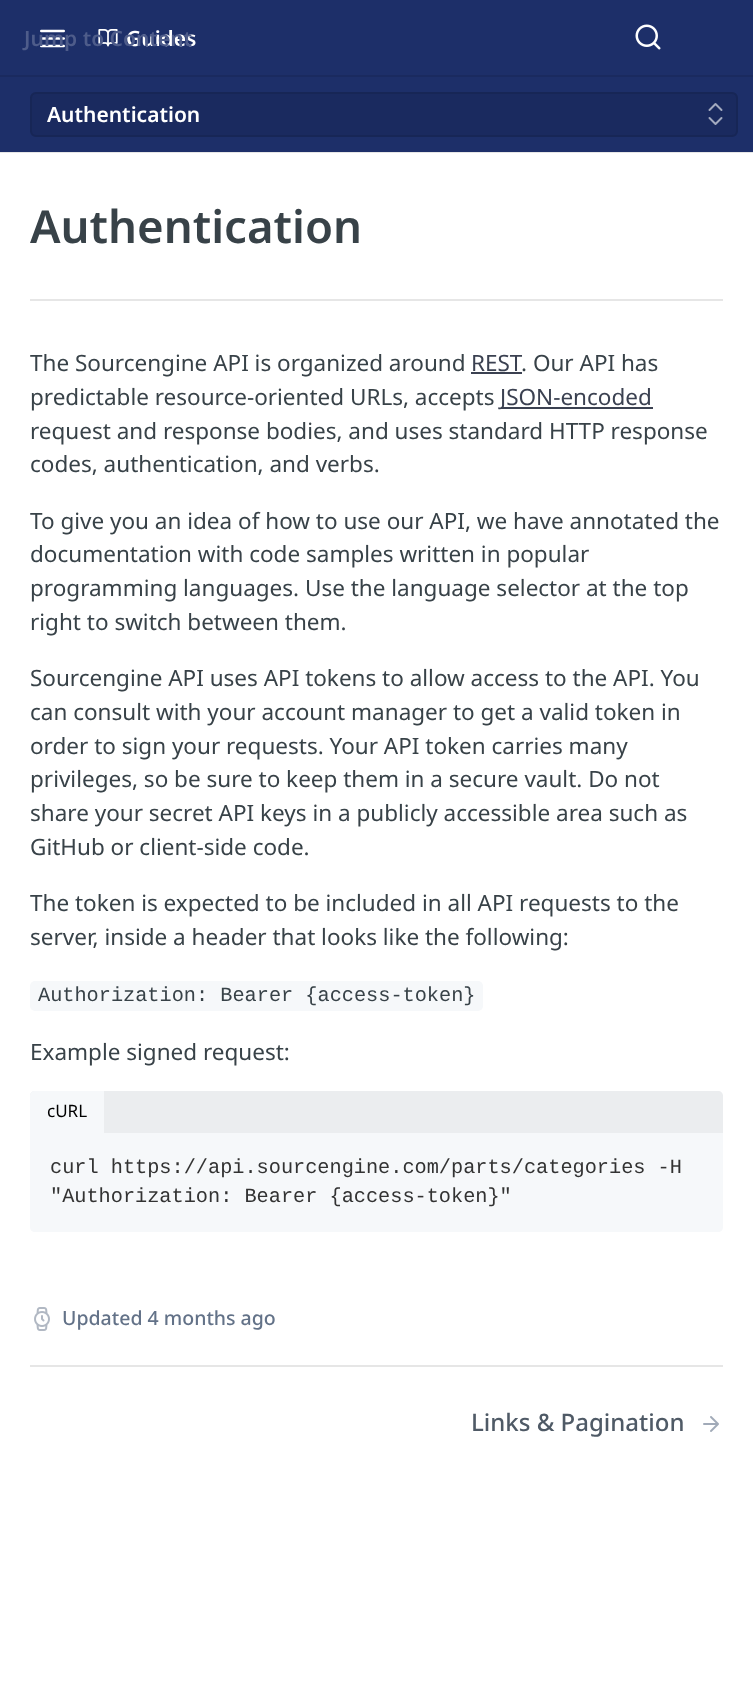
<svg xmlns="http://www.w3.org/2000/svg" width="753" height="1686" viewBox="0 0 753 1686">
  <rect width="100%" height="100%" fill="rgb(255,255,255)"/>
  <rect x="0" y="152" width="753" height="1" fill="rgb(230,230,230)"/>
  <rect x="0" y="0" width="753" height="152" fill="rgb(29,47,105)"/>
  <rect x="0" y="75" width="753" height="2" fill="rgb(26,42,95)"/>
  <image x="40" y="29" width="25" height="19" href="pic2.png"/>
  <image x="98" y="29" width="20" height="18" href="pic3.png"/>
  <text x="126" y="46" font-family="Noto Sans" font-size="21" font-weight="600" fill="rgb(255,255,255)">Guides</text>
  <text x="24" y="46" font-family="Noto Sans" font-size="21" font-weight="600" fill="rgb(78,92,138)">Jump to Content</text>
  <image x="635" y="24" width="26" height="26" href="pic1.png"/>
  <rect x="31" y="93" width="706" height="43" rx="5" fill="rgb(26,42,95)" stroke="rgb(23,38,86)" stroke-width="2"/>
  <text x="47" y="122" font-family="Noto Sans" font-size="21" font-weight="600" fill="rgb(255,255,255)">Authentication</text>
  <path d="M709.5 118L715.5 124L721.5 118M721.5 110L715.5 104L709.5 110" fill="none" stroke="rgb(163,170,191)" stroke-width="2" stroke-linecap="round" stroke-linejoin="round"/>
  <rect x="30" y="299" width="693" height="2" fill="rgb(230,230,230)"/>
  <text x="30" y="243" font-family="Noto Sans" font-size="45.5" font-weight="600" fill="rgb(56,66,72)">Authentication</text>
  <text x="30" y="371" font-family="Noto Sans" font-size="22.5" fill="rgb(56,66,72)">The Sourcengine API is organized around</text>
  <text x="471" y="371" font-family="Noto Sans" font-size="22.5" fill="rgb(59,65,81)">REST</text>
  <rect x="471" y="372" width="51" height="2" fill="rgb(59,65,81)"/>
  <g font-family="Noto Sans" font-size="22.5" fill="rgb(56,66,72)">
    <text x="521" y="371">. Our API has</text>
    <text x="30" y="405">predictable resource-oriented URLs, accepts</text>
  </g>
  <rect x="501" y="407" width="152" height="2" fill="rgb(59,65,81)"/>
  <text x="500" y="405" font-family="Noto Sans" font-size="22.5" fill="rgb(59,65,81)">JSON-encoded</text>
  <g font-family="Noto Sans" font-size="22.5" fill="rgb(56,66,72)">
    <text>
      <tspan x="30" y="439">request and response bodies, and uses standard HTTP response</tspan>
      <tspan x="30" y="472">codes, authentication, and verbs.</tspan>
    </text>
    <text>
      <tspan x="30" y="529">To give you an idea of how to use our API, we have annotated the</tspan>
      <tspan x="30" y="562">documentation with code samples written in popular</tspan>
      <tspan x="30" y="596">programming languages. Use the language selector at the top</tspan>
      <tspan x="30" y="630">right to switch between them.</tspan>
    </text>
    <text>
      <tspan x="30" y="686">Sourcengine API uses API tokens to allow access to the API. You</tspan>
      <tspan x="30" y="720">can consult with your account manager to get a valid token in</tspan>
      <tspan x="30" y="754">order to sign your requests. Your API token carries many</tspan>
      <tspan x="30" y="787">privileges, so be sure to keep them in a secure vault. Do not</tspan>
      <tspan x="30" y="821">share your secret API keys in a publicly accessible area such as</tspan>
      <tspan x="30" y="855">GitHub or client-side code.</tspan>
    </text>
    <text>
      <tspan x="30" y="911">The token is expected to be included in all API requests to the</tspan>
      <tspan x="30" y="945">server, inside a header that looks like the following:</tspan>
    </text>
  </g>
  <rect x="30" y="981" width="453" height="30" rx="5" fill="rgb(246,248,250)"/>
  <text x="38" y="1001" font-family="Liberation Mono" font-size="20.25" fill="rgb(56,66,72)">Authorization: Bearer {access-token}</text>
  <text x="30" y="1060" font-family="Noto Sans" font-size="22.5" fill="rgb(56,66,72)">Example signed request:</text>
  <path d="M35 1091H718C721 1091 723 1093 723 1096V1133H30V1096C30 1093 32 1091 35 1091Z" fill="rgb(235,237,239)"/>
  <path d="M35 1091H104V1133H30V1096C30 1093 32 1091 35 1091Z" fill="rgb(246,248,250)"/>
  <text x="47" y="1117" font-family="Noto Sans" font-size="17" fill="rgb(0,0,0)">cURL</text>
  <path d="M30 1133H723V1227C723 1230 721 1232 718 1232H35C32 1232 30 1230 30 1227Z" fill="rgb(246,248,250)"/>
  <g font-family="Liberation Mono" font-size="20.25" fill="rgb(51,51,51)">
    <text>
      <tspan x="50" y="1173">curl https://api.sourcengine.com/parts/categories -H</tspan>
      <tspan x="50" y="1202">"Authorization: Bearer {access-token}"</tspan>
    </text>
  </g>
  <image x="34" y="1307" width="16" height="24" href="pic4.png"/>
  <text x="62" y="1325" font-family="Noto Sans" font-size="19.5" font-weight="500" fill="rgb(99,114,136)">Updated 4 months ago</text>
  <rect x="30" y="1365" width="693" height="2" fill="rgb(230,230,230)"/>
  <text x="471" y="1431" font-family="Noto Sans" font-size="24" font-weight="500" fill="rgb(79,90,102)">Links &amp; Pagination</text>
  <image x="703" y="1416" width="16" height="16" href="pic5.png"/>
</svg>
